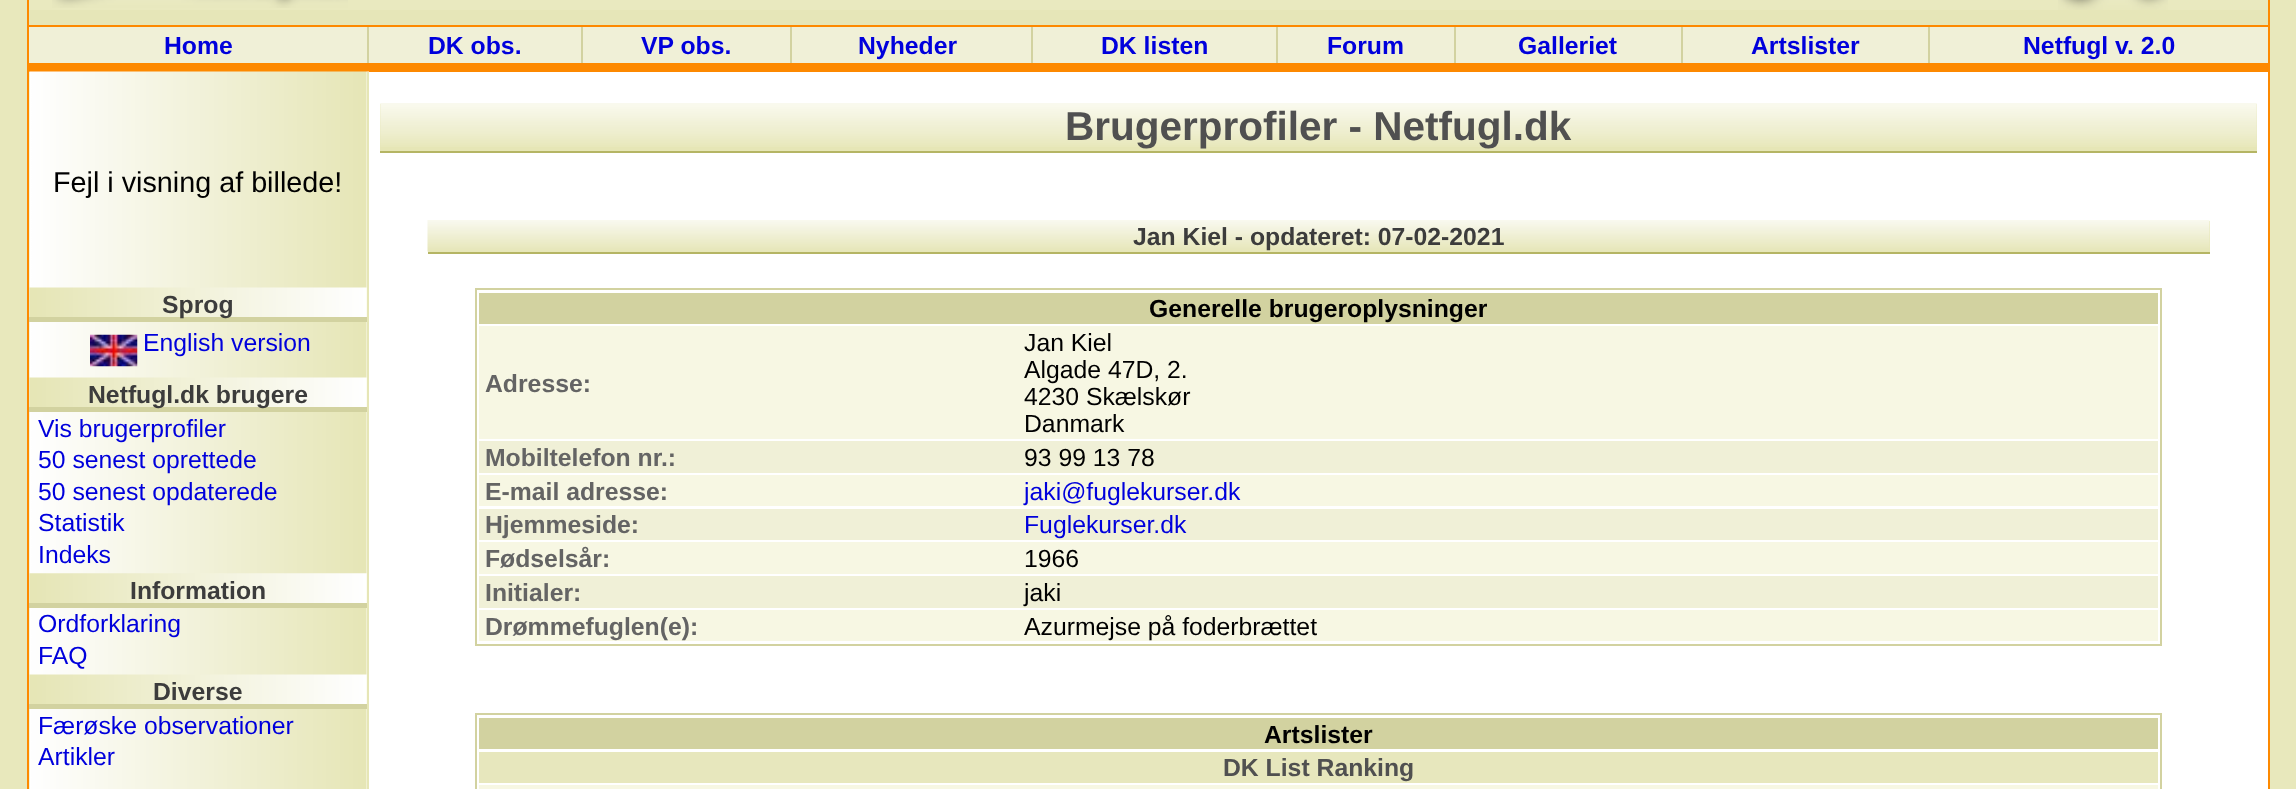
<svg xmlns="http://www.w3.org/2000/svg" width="2296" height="789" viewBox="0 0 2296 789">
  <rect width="100%" height="100%" fill="rgb(232,232,188)"/>
  <rect x="29" y="10" width="2239" height="15" fill="rgb(230,230,184)"/>
  <rect x="29" y="0" width="2239" height="10" fill="rgb(233,233,191)"/>
  <rect x="2268" y="0" width="2" height="25" fill="rgb(253,137,0)"/>
  <rect x="27" y="0" width="2" height="25" fill="rgb(253,137,0)"/>
  <image x="52" y="0" width="296" height="8" href="pic1.png"/>
  <image x="2058" y="0" width="110" height="10" href="pic2.png"/>
  <rect x="29" y="27" width="2239" height="36" fill="rgb(240,240,215)"/>
  <rect x="27" y="25" width="2243" height="2" fill="rgb(253,137,0)"/>
  <rect x="27" y="63" width="2243" height="2" fill="rgb(253,137,0)"/>
  <rect x="27" y="25" width="2" height="45" fill="rgb(253,137,0)"/>
  <rect x="367" y="27" width="2" height="36" fill="rgb(210,210,160)"/>
  <text x="164" y="54" font-family="Liberation Sans" font-size="24.75" font-weight="bold" fill="rgb(0,0,220)">Home</text>
  <rect x="581" y="27" width="2" height="36" fill="rgb(210,210,160)"/>
  <text x="428" y="54" font-family="Liberation Sans" font-size="24.75" font-weight="bold" fill="rgb(0,0,220)">DK obs.</text>
  <rect x="790" y="27" width="2" height="36" fill="rgb(210,210,160)"/>
  <text x="641" y="54" font-family="Liberation Sans" font-size="24.75" font-weight="bold" fill="rgb(0,0,220)">VP obs.</text>
  <rect x="1031" y="27" width="2" height="36" fill="rgb(210,210,160)"/>
  <text x="858" y="54" font-family="Liberation Sans" font-size="24.75" font-weight="bold" fill="rgb(0,0,220)">Nyheder</text>
  <rect x="1276" y="27" width="2" height="36" fill="rgb(210,210,160)"/>
  <text x="1101" y="54" font-family="Liberation Sans" font-size="24.75" font-weight="bold" fill="rgb(0,0,220)">DK listen</text>
  <rect x="1454" y="27" width="2" height="36" fill="rgb(210,210,160)"/>
  <text x="1327" y="54" font-family="Liberation Sans" font-size="24.75" font-weight="bold" fill="rgb(0,0,220)">Forum</text>
  <rect x="1681" y="27" width="2" height="36" fill="rgb(210,210,160)"/>
  <text x="1518" y="54" font-family="Liberation Sans" font-size="24.75" font-weight="bold" fill="rgb(0,0,220)">Galleriet</text>
  <rect x="1928" y="27" width="2" height="36" fill="rgb(210,210,160)"/>
  <text x="1751" y="54" font-family="Liberation Sans" font-size="24.75" font-weight="bold" fill="rgb(0,0,220)">Artslister</text>
  <rect x="2268" y="27" width="2" height="36" fill="rgb(253,137,0)"/>
  <text x="2023" y="54" font-family="Liberation Sans" font-size="24.75" font-weight="bold" fill="rgb(0,0,220)">Netfugl v. 2.0</text>
  <rect x="29" y="65" width="2241" height="5" fill="rgb(253,137,0)"/>
  <rect x="28" y="71" width="2241" height="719" fill="none" stroke="rgb(253,137,0)" stroke-width="2"/>
  <image x="29" y="71" width="340" height="718" href="pic3.png"/>
  <rect x="367" y="72" width="2" height="717" fill="rgb(230,230,182)"/>
  <text x="53" y="192" font-family="Liberation Sans" font-size="28.75" fill="rgb(0,0,0)">Fejl i visning af billede!</text>
  <image x="29" y="287" width="338" height="30" href="pic4.png"/>
  <rect x="29" y="317" width="338" height="5" fill="rgb(210,210,160)"/>
  <text x="162" y="313" font-family="Liberation Sans" font-size="24.75" font-weight="bold" fill="rgb(60,60,60)">Sprog</text>
  <image x="90" y="334" width="48" height="33" href="pic5.png"/>
  <text x="143" y="351" font-family="Liberation Sans" font-size="24.75" fill="rgb(0,0,220)">English version</text>
  <image x="29" y="377" width="338" height="30" href="pic4.png"/>
  <rect x="29" y="407" width="338" height="5" fill="rgb(210,210,160)"/>
  <text x="88" y="403" font-family="Liberation Sans" font-size="24.75" font-weight="bold" fill="rgb(60,60,60)">Netfugl.dk brugere</text>
  <g font-family="Liberation Sans" font-size="24.75" fill="rgb(0,0,220)">
    <text>
      <tspan x="38" y="437">Vis brugerprofiler</tspan>
      <tspan x="38" y="468">50 senest oprettede</tspan>
      <tspan x="38" y="500">50 senest opdaterede</tspan>
      <tspan x="38" y="531">Statistik</tspan>
      <tspan x="38" y="563">Indeks</tspan>
    </text>
  </g>
  <image x="29" y="573" width="338" height="30" href="pic6.png"/>
  <rect x="29" y="603" width="338" height="5" fill="rgb(210,210,160)"/>
  <text x="130" y="599" font-family="Liberation Sans" font-size="24.75" font-weight="bold" fill="rgb(60,60,60)">Information</text>
  <g font-family="Liberation Sans" font-size="24.75" fill="rgb(0,0,220)">
    <text>
      <tspan x="38" y="632">Ordforklaring</tspan>
      <tspan x="38" y="664">FAQ</tspan>
    </text>
  </g>
  <image x="29" y="674" width="338" height="30" href="pic4.png"/>
  <rect x="29" y="704" width="338" height="5" fill="rgb(210,210,160)"/>
  <text x="153" y="700" font-family="Liberation Sans" font-size="24.75" font-weight="bold" fill="rgb(60,60,60)">Diverse</text>
  <g font-family="Liberation Sans" font-size="24.75" fill="rgb(0,0,220)">
    <text>
      <tspan x="38" y="734">Færøske observationer</tspan>
      <tspan x="38" y="765">Artikler</tspan>
    </text>
  </g>
  <rect x="369" y="72" width="1899" height="717" fill="rgb(255,255,255)"/>
  <rect x="380" y="104" width="1877" height="47" fill="rgb(230,230,182)"/>
  <image x="380" y="103" width="1877" height="44" href="pic7.png"/>
  <rect x="380" y="151" width="1877" height="2" fill="rgb(181,181,100)"/>
  <text x="1065" y="140" font-family="Liberation Sans" font-size="40.5" font-weight="bold" fill="rgb(80,80,80)">Brugerprofiler - Netfugl.dk</text>
  <rect x="428" y="252" width="1782" height="2" fill="rgb(181,181,100)"/>
  <rect x="428" y="221" width="1782" height="31" fill="rgb(230,230,182)"/>
  <image x="427" y="220" width="1783" height="32" href="pic8.png"/>
  <text x="1133" y="245" font-family="Liberation Sans" font-size="24.75" font-weight="bold" fill="rgb(60,60,60)">Jan Kiel - opdateret: 07-02-2021</text>
  <rect x="476" y="289" width="1685" height="356" fill="none" stroke="rgb(210,210,160)" stroke-width="2"/>
  <rect x="479" y="293" width="1679" height="31" fill="rgb(210,210,160)"/>
  <text x="1149" y="317" font-family="Liberation Sans" font-size="24.75" font-weight="bold" fill="rgb(0,0,0)">Generelle brugeroplysninger</text>
  <rect x="479" y="326" width="1679" height="113" fill="rgb(247,247,227)"/>
  <text x="485" y="392" font-family="Liberation Sans" font-size="24.75" font-weight="bold" fill="rgb(100,100,100)">Adresse:</text>
  <g font-family="Liberation Sans" font-size="24.75" fill="rgb(0,0,0)">
    <text>
      <tspan x="1024" y="351">Jan Kiel</tspan>
      <tspan x="1024" y="378">Algade 47D, 2.</tspan>
      <tspan x="1024" y="405">4230 Skælskør</tspan>
      <tspan x="1024" y="432">Danmark</tspan>
    </text>
  </g>
  <rect x="479" y="441" width="1679" height="32" fill="rgb(240,240,215)"/>
  <text x="485" y="466" font-family="Liberation Sans" font-size="24.75" font-weight="bold" fill="rgb(100,100,100)">Mobiltelefon nr.:</text>
  <text x="1024" y="466" font-family="Liberation Sans" font-size="24.75" fill="rgb(0,0,0)">93 99 13 78</text>
  <rect x="479" y="475" width="1679" height="31" fill="rgb(247,247,227)"/>
  <text x="485" y="500" font-family="Liberation Sans" font-size="24.75" font-weight="bold" fill="rgb(100,100,100)">E-mail adresse:</text>
  <text x="1024" y="500" font-family="Liberation Sans" font-size="24.75" fill="rgb(0,0,220)">jaki@fuglekurser.dk</text>
  <rect x="479" y="509" width="1679" height="31" fill="rgb(240,240,215)"/>
  <text x="485" y="533" font-family="Liberation Sans" font-size="24.75" font-weight="bold" fill="rgb(100,100,100)">Hjemmeside:</text>
  <text x="1024" y="533" font-family="Liberation Sans" font-size="24.75" fill="rgb(0,0,220)">Fuglekurser.dk</text>
  <rect x="479" y="542" width="1679" height="32" fill="rgb(247,247,227)"/>
  <text x="485" y="567" font-family="Liberation Sans" font-size="24.75" font-weight="bold" fill="rgb(100,100,100)">Fødselsår:</text>
  <text x="1024" y="567" font-family="Liberation Sans" font-size="24.75" fill="rgb(0,0,0)">1966</text>
  <rect x="479" y="576" width="1679" height="32" fill="rgb(240,240,215)"/>
  <text x="485" y="601" font-family="Liberation Sans" font-size="24.75" font-weight="bold" fill="rgb(100,100,100)">Initialer:</text>
  <text x="1024" y="601" font-family="Liberation Sans" font-size="24.75" fill="rgb(0,0,0)">jaki</text>
  <rect x="479" y="610" width="1679" height="31" fill="rgb(247,247,227)"/>
  <text x="485" y="635" font-family="Liberation Sans" font-size="24.75" font-weight="bold" fill="rgb(100,100,100)">Drømmefuglen(e):</text>
  <text x="1024" y="635" font-family="Liberation Sans" font-size="24.75" fill="rgb(0,0,0)">Azurmejse på foderbrættet</text>
  <rect x="476" y="714" width="1685" height="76" fill="none" stroke="rgb(210,210,160)" stroke-width="2"/>
  <rect x="479" y="718" width="1679" height="31" fill="rgb(210,210,160)"/>
  <text x="1264" y="743" font-family="Liberation Sans" font-size="24.75" font-weight="bold" fill="rgb(0,0,0)">Artslister</text>
  <rect x="479" y="752" width="1679" height="31" fill="rgb(231,231,189)"/>
  <text x="1223" y="776" font-family="Liberation Sans" font-size="24.75" font-weight="bold" fill="rgb(80,80,80)">DK List Ranking</text>
  <rect x="479" y="785" width="1679" height="4" fill="rgb(247,247,227)"/>
</svg>
